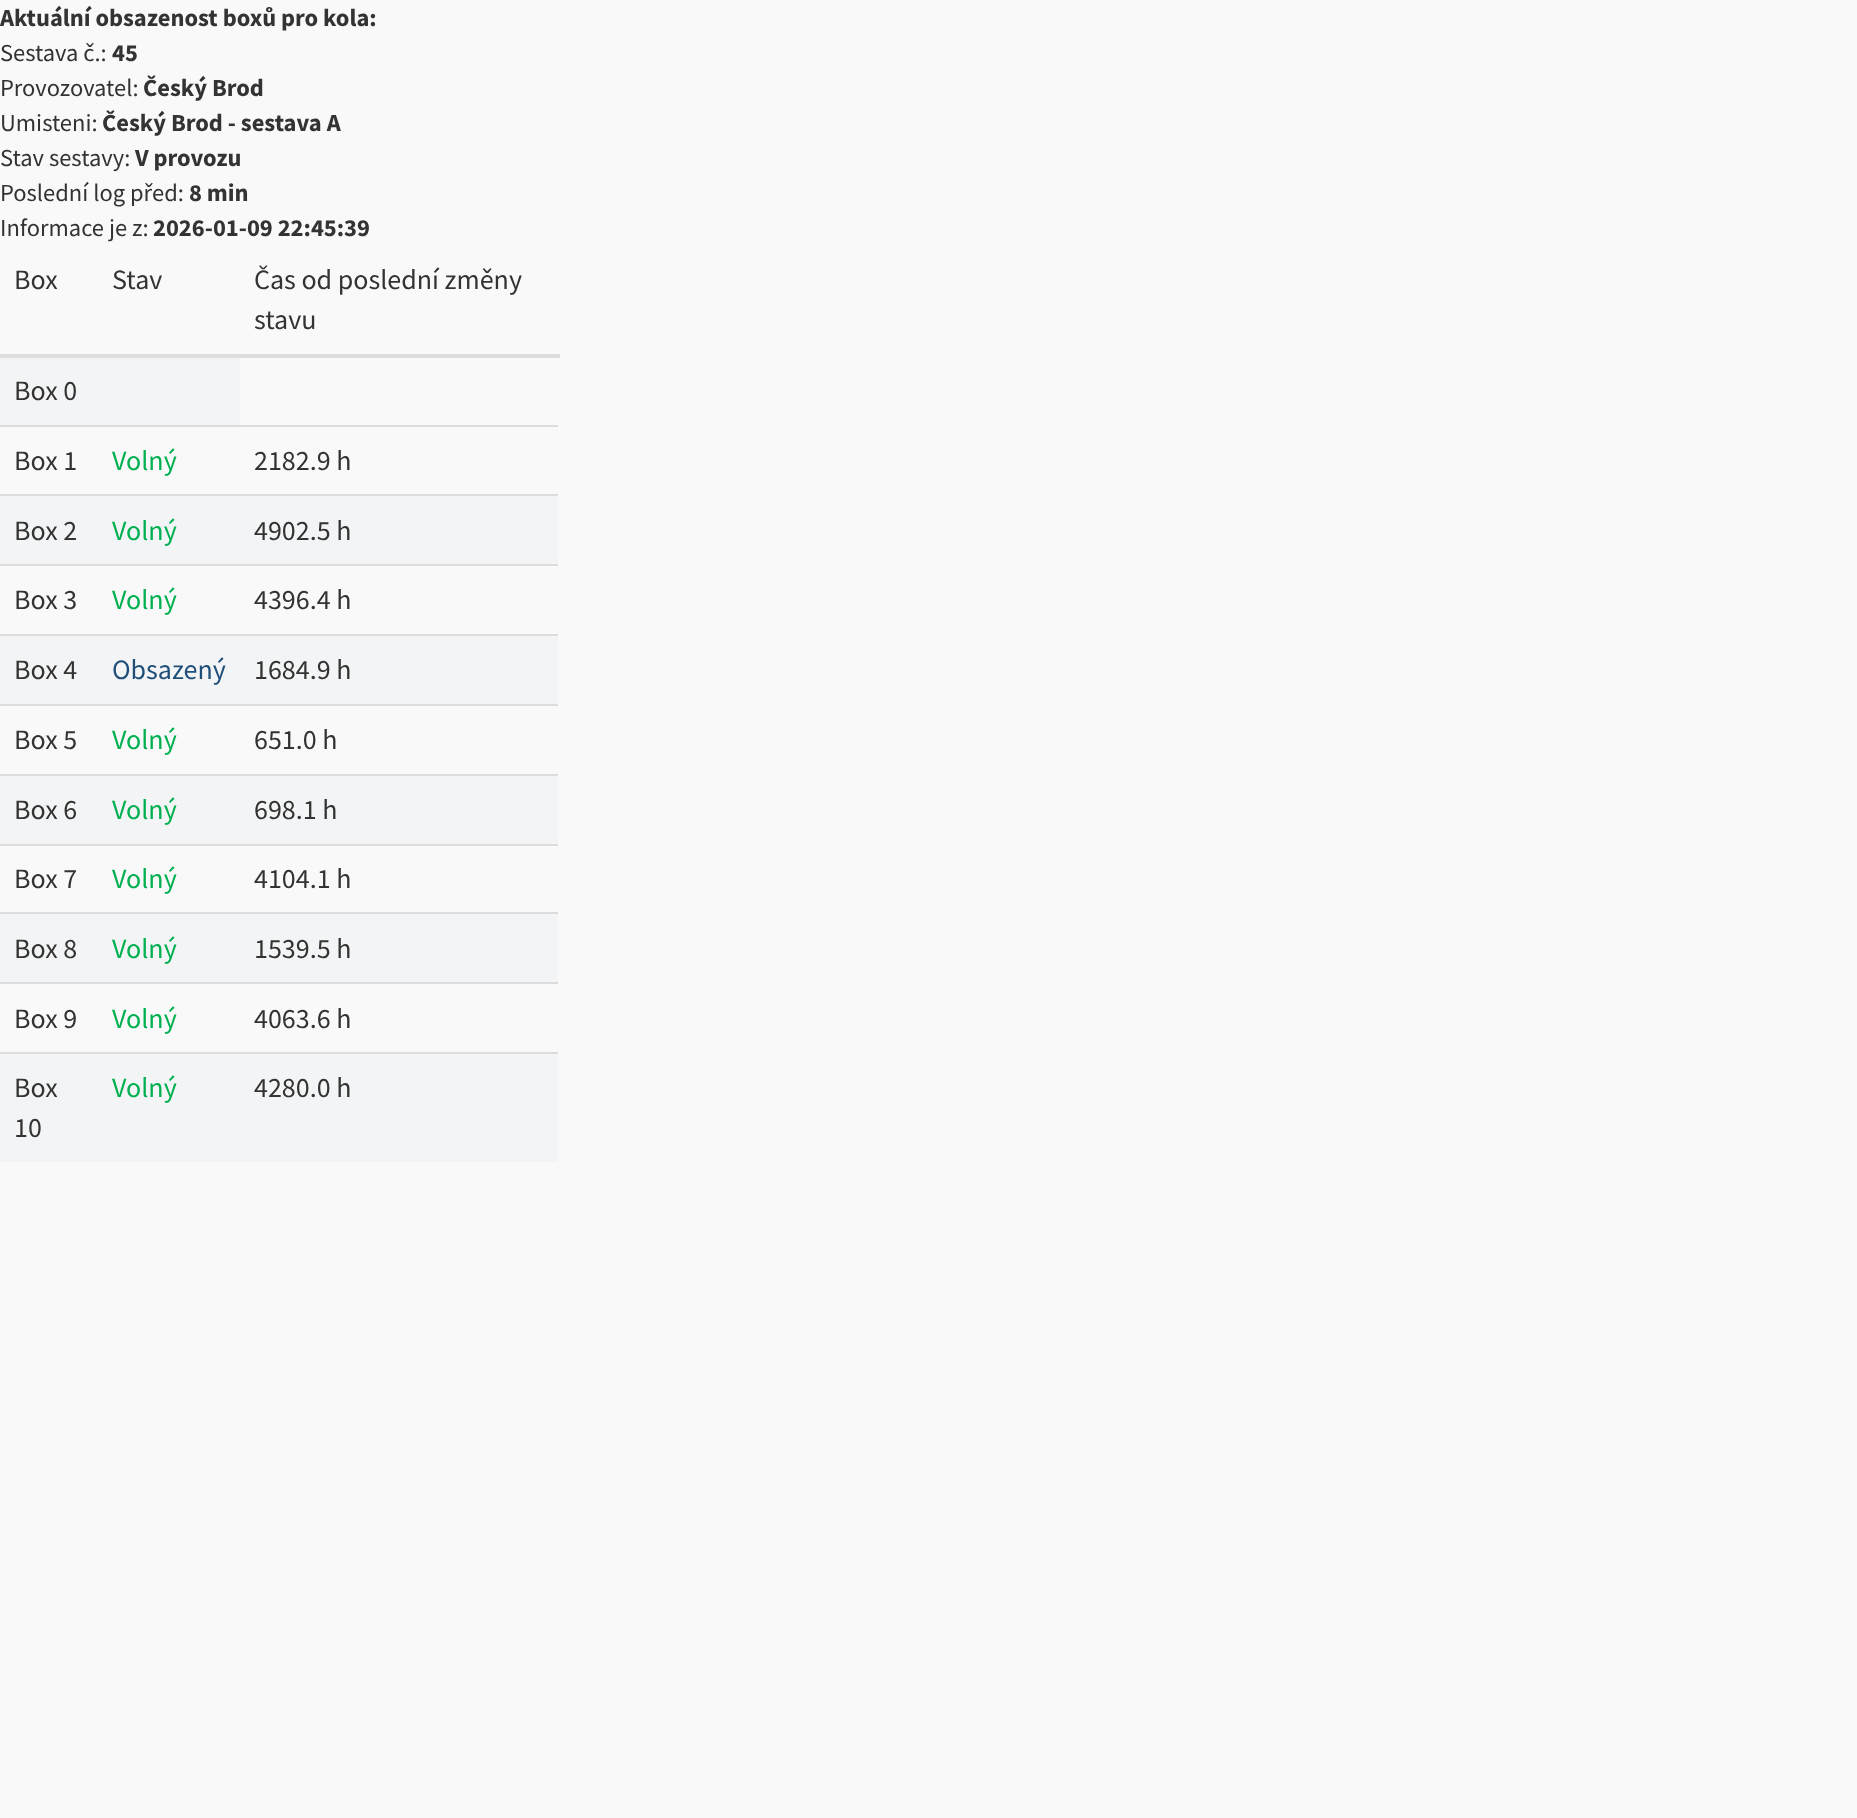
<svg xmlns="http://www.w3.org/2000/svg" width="1857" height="1818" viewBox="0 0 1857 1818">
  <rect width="100%" height="100%" fill="rgb(249,249,249)"/>
  <text x="0" y="26" font-family="Source Sans Pro" font-size="24.5" font-weight="bold" fill="rgb(51,51,51)">Aktuální obsazenost boxů pro kola:</text>
  <text x="0" y="61" font-family="Source Sans Pro" font-size="24.5" fill="rgb(51,51,51)">Sestava č.:</text>
  <text x="112" y="61" font-family="Source Sans Pro" font-size="24.5" font-weight="bold" fill="rgb(51,51,51)">45</text>
  <text x="0" y="96" font-family="Source Sans Pro" font-size="24.5" fill="rgb(51,51,51)">Provozovatel:</text>
  <text x="143" y="96" font-family="Source Sans Pro" font-size="24.5" font-weight="bold" fill="rgb(51,51,51)">Český Brod</text>
  <text x="0" y="131" font-family="Source Sans Pro" font-size="24.5" fill="rgb(51,51,51)">Umisteni:</text>
  <text x="102" y="131" font-family="Source Sans Pro" font-size="24.5" font-weight="bold" fill="rgb(51,51,51)">Český Brod - sestava A</text>
  <text x="0" y="166" font-family="Source Sans Pro" font-size="24.5" fill="rgb(51,51,51)">Stav sestavy:</text>
  <text x="135" y="166" font-family="Source Sans Pro" font-size="24.5" font-weight="bold" fill="rgb(51,51,51)">V provozu</text>
  <text x="0" y="201" font-family="Source Sans Pro" font-size="24.5" fill="rgb(51,51,51)">Poslední log před:</text>
  <text x="189" y="201" font-family="Source Sans Pro" font-size="24.5" font-weight="bold" fill="rgb(51,51,51)">8 min</text>
  <text x="0" y="236" font-family="Source Sans Pro" font-size="24.5" fill="rgb(51,51,51)">Informace je z:</text>
  <text x="153" y="236" font-family="Source Sans Pro" font-size="24.5" font-weight="bold" fill="rgb(51,51,51)">2026-01-09 22:45:39</text>
  <g font-family="Source Sans Pro" font-size="28" fill="rgb(51,51,51)">
    <text x="14" y="289">Box</text>
    <text x="112" y="289">Stav</text>
    <text>
      <tspan x="254" y="289">Čas od poslední změny</tspan>
      <tspan x="254" y="329">stavu</tspan>
    </text>
  </g>
  <rect x="0" y="354" width="560" height="4" fill="rgb(221,221,221)"/>
  <rect x="0" y="358" width="240" height="67" fill="rgb(243,244,245)"/>
  <g font-family="Source Sans Pro" font-size="28" fill="rgb(51,51,51)">
    <text x="14" y="400">Box 0</text>
    <text x="14" y="470">Box 1</text>
  </g>
  <text x="112" y="470" font-family="Source Sans Pro" font-size="28" fill="rgb(0,176,80)">Volný</text>
  <rect x="0" y="425" width="558" height="2" fill="rgb(221,221,221)"/>
  <text x="254" y="470" font-family="Source Sans Pro" font-size="28" fill="rgb(51,51,51)">2182.9 h</text>
  <rect x="0" y="496" width="558" height="68" fill="rgb(243,244,245)"/>
  <text x="14" y="540" font-family="Source Sans Pro" font-size="28" fill="rgb(51,51,51)">Box 2</text>
  <text x="112" y="540" font-family="Source Sans Pro" font-size="28" fill="rgb(0,176,80)">Volný</text>
  <rect x="0" y="494" width="558" height="2" fill="rgb(221,221,221)"/>
  <g font-family="Source Sans Pro" font-size="28" fill="rgb(51,51,51)">
    <text x="254" y="540">4902.5 h</text>
    <text x="14" y="609">Box 3</text>
  </g>
  <text x="112" y="609" font-family="Source Sans Pro" font-size="28" fill="rgb(0,176,80)">Volný</text>
  <rect x="0" y="564" width="558" height="2" fill="rgb(221,221,221)"/>
  <text x="254" y="609" font-family="Source Sans Pro" font-size="28" fill="rgb(51,51,51)">4396.4 h</text>
  <rect x="0" y="636" width="558" height="68" fill="rgb(243,244,245)"/>
  <text x="14" y="679" font-family="Source Sans Pro" font-size="28" fill="rgb(51,51,51)">Box 4</text>
  <text x="112" y="679" font-family="Source Sans Pro" font-size="28" fill="rgb(31,78,121)">Obsazený</text>
  <rect x="0" y="634" width="558" height="2" fill="rgb(221,221,221)"/>
  <g font-family="Source Sans Pro" font-size="28" fill="rgb(51,51,51)">
    <text x="254" y="679">1684.9 h</text>
    <text x="14" y="749">Box 5</text>
  </g>
  <text x="112" y="749" font-family="Source Sans Pro" font-size="28" fill="rgb(0,176,80)">Volný</text>
  <rect x="0" y="704" width="558" height="2" fill="rgb(221,221,221)"/>
  <text x="254" y="749" font-family="Source Sans Pro" font-size="28" fill="rgb(51,51,51)">651.0 h</text>
  <rect x="0" y="776" width="558" height="68" fill="rgb(243,244,245)"/>
  <text x="14" y="819" font-family="Source Sans Pro" font-size="28" fill="rgb(51,51,51)">Box 6</text>
  <text x="112" y="819" font-family="Source Sans Pro" font-size="28" fill="rgb(0,176,80)">Volný</text>
  <rect x="0" y="774" width="558" height="2" fill="rgb(221,221,221)"/>
  <g font-family="Source Sans Pro" font-size="28" fill="rgb(51,51,51)">
    <text x="254" y="819">698.1 h</text>
    <text x="14" y="888">Box 7</text>
  </g>
  <text x="112" y="888" font-family="Source Sans Pro" font-size="28" fill="rgb(0,176,80)">Volný</text>
  <rect x="0" y="844" width="558" height="2" fill="rgb(221,221,221)"/>
  <text x="254" y="888" font-family="Source Sans Pro" font-size="28" fill="rgb(51,51,51)">4104.1 h</text>
  <rect x="0" y="914" width="558" height="68" fill="rgb(243,244,245)"/>
  <text x="14" y="958" font-family="Source Sans Pro" font-size="28" fill="rgb(51,51,51)">Box 8</text>
  <text x="112" y="958" font-family="Source Sans Pro" font-size="28" fill="rgb(0,176,80)">Volný</text>
  <rect x="0" y="912" width="558" height="2" fill="rgb(221,221,221)"/>
  <g font-family="Source Sans Pro" font-size="28" fill="rgb(51,51,51)">
    <text x="254" y="958">1539.5 h</text>
    <text x="14" y="1028">Box 9</text>
  </g>
  <text x="112" y="1028" font-family="Source Sans Pro" font-size="28" fill="rgb(0,176,80)">Volný</text>
  <rect x="0" y="982" width="558" height="2" fill="rgb(221,221,221)"/>
  <text x="254" y="1028" font-family="Source Sans Pro" font-size="28" fill="rgb(51,51,51)">4063.6 h</text>
  <rect x="0" y="1054" width="558" height="108" fill="rgb(243,244,245)"/>
  <g font-family="Source Sans Pro" font-size="28" fill="rgb(51,51,51)">
    <text>
      <tspan x="14" y="1097">Box</tspan>
      <tspan x="14" y="1137">10</tspan>
    </text>
  </g>
  <text x="112" y="1097" font-family="Source Sans Pro" font-size="28" fill="rgb(0,176,80)">Volný</text>
  <rect x="0" y="1052" width="558" height="2" fill="rgb(221,221,221)"/>
  <text x="254" y="1097" font-family="Source Sans Pro" font-size="28" fill="rgb(51,51,51)">4280.0 h</text>
</svg>
